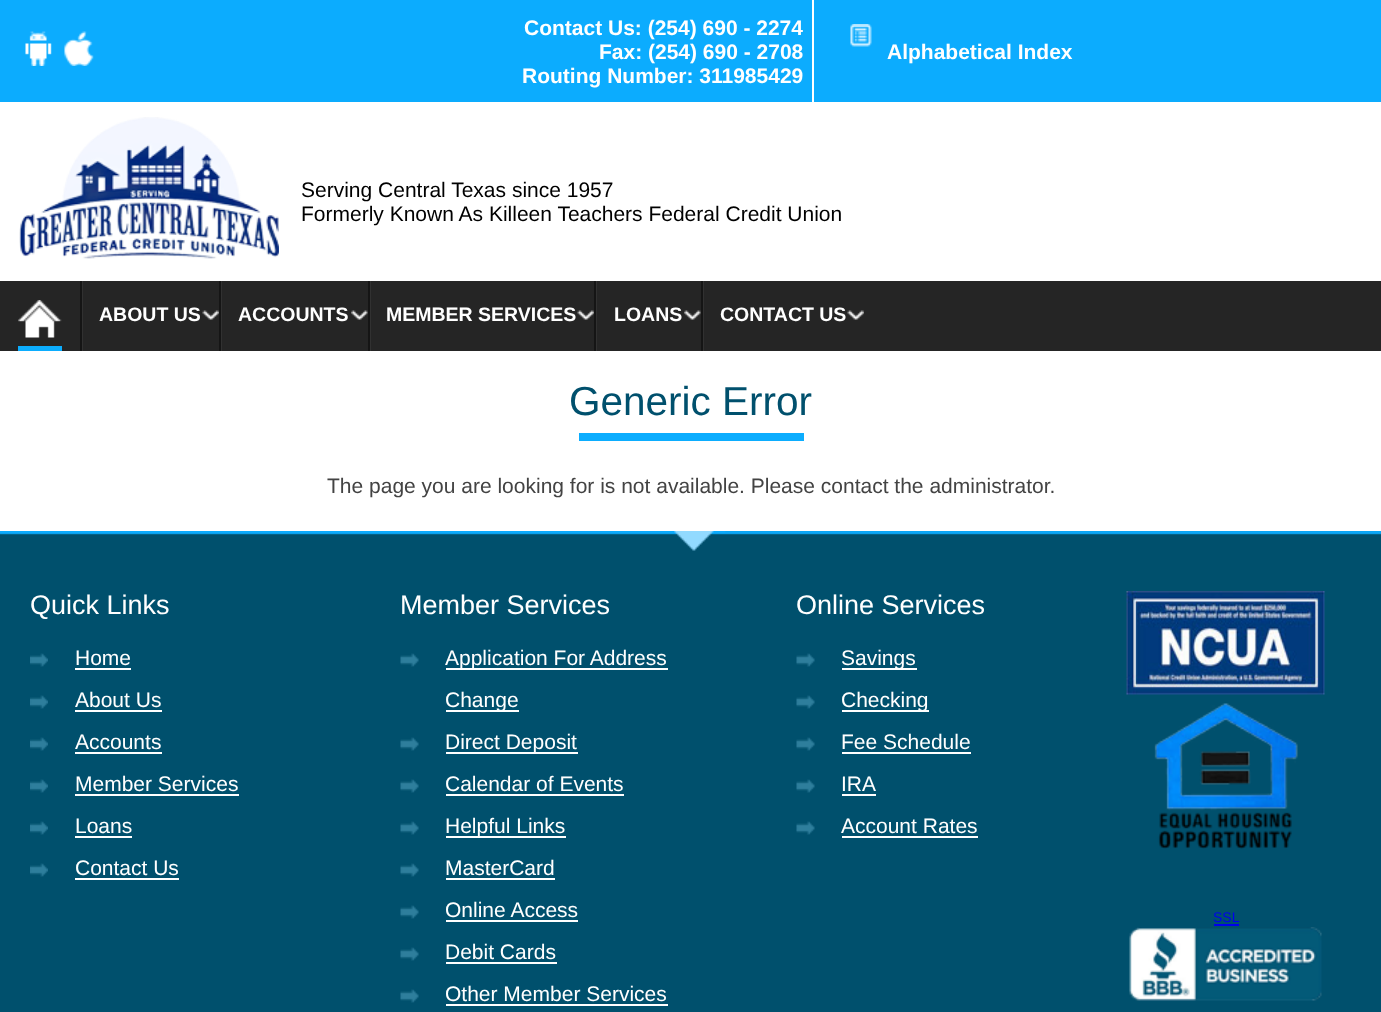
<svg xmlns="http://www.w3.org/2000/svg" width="1381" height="1012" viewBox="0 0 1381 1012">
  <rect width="100%" height="100%" fill="rgb(255,255,255)"/>
  <rect x="0" y="0" width="1381" height="102" fill="rgb(12,172,254)"/>
  <image x="25" y="31" width="27" height="35" href="pic1.png"/>
  <image x="64" y="31" width="30" height="35" href="pic2.png"/>
  <g font-family="Liberation Sans" font-size="21" font-weight="bold" fill="rgb(255,255,255)">
    <text x="524" y="35">Contact Us: (254) 690 - 2274</text>
    <text x="599" y="59">Fax: (254) 690 - 2708</text>
    <text x="522" y="83">Routing Number: 311985429</text>
  </g>
  <image x="850" y="24" width="22" height="23" href="pic3.png"/>
  <rect x="812" y="0" width="2" height="102" fill="rgb(255,255,255)"/>
  <text x="887" y="59" font-family="Liberation Sans" font-size="21" font-weight="bold" fill="rgb(255,255,255)">Alphabetical Index</text>
  <image x="19" y="117" width="260" height="142" href="pic4.png"/>
  <g font-family="Liberation Sans" font-size="21" fill="rgb(0,0,0)">
    <text>
      <tspan x="301" y="197">Serving Central Texas since 1957</tspan>
      <tspan x="301" y="221">Formerly Known As Killeen Teachers Federal Credit Union</tspan>
    </text>
  </g>
  <rect x="0" y="281" width="1381" height="70" fill="rgb(37,37,37)"/>
  <rect x="82" y="281" width="1" height="70" fill="rgb(49,49,49)"/>
  <rect x="80" y="281" width="2" height="70" fill="rgb(21,21,21)"/>
  <rect x="18" y="346" width="44" height="5" fill="rgb(12,173,254)"/>
  <image x="18" y="300" width="44" height="38" href="pic5.png"/>
  <rect x="221" y="281" width="1" height="70" fill="rgb(49,49,49)"/>
  <image x="202" y="310" width="17" height="10" href="pic6.png"/>
  <rect x="219" y="281" width="2" height="70" fill="rgb(21,21,21)"/>
  <text x="99" y="321" font-family="Liberation Sans" font-size="19.5" font-weight="bold" fill="rgb(255,255,255)">ABOUT US</text>
  <rect x="370" y="281" width="1" height="70" fill="rgb(49,49,49)"/>
  <image x="351" y="310" width="17" height="10" href="pic7.png"/>
  <rect x="368" y="281" width="2" height="70" fill="rgb(21,21,21)"/>
  <text x="238" y="321" font-family="Liberation Sans" font-size="19.5" font-weight="bold" fill="rgb(255,255,255)">ACCOUNTS</text>
  <rect x="596" y="281" width="1" height="70" fill="rgb(49,49,49)"/>
  <image x="577" y="310" width="17" height="10" href="pic8.png"/>
  <rect x="594" y="281" width="2" height="70" fill="rgb(21,21,21)"/>
  <text x="386" y="321" font-family="Liberation Sans" font-size="19.5" font-weight="bold" fill="rgb(255,255,255)">MEMBER SERVICES</text>
  <rect x="703" y="281" width="1" height="70" fill="rgb(49,49,49)"/>
  <image x="684" y="310" width="17" height="10" href="pic9.png"/>
  <rect x="701" y="281" width="2" height="70" fill="rgb(21,21,21)"/>
  <text x="614" y="321" font-family="Liberation Sans" font-size="19.5" font-weight="bold" fill="rgb(255,255,255)">LOANS</text>
  <image x="847" y="310" width="17" height="10" href="pic6.png"/>
  <text x="720" y="321" font-family="Liberation Sans" font-size="19.5" font-weight="bold" fill="rgb(255,255,255)">CONTACT US</text>
  <rect x="579" y="433" width="225" height="8" fill="rgb(12,173,254)"/>
  <text x="569" y="415" font-family="Liberation Sans" font-size="40.5" fill="rgb(0,80,109)">Generic Error</text>
  <text x="327" y="493" font-family="Liberation Sans" font-size="21" fill="rgb(67,67,67)">The page you are looking for is not available. Please contact the administrator.</text>
  <rect x="0" y="531" width="1381" height="481" fill="rgb(0,80,109)"/>
  <image x="0" y="531" width="1381" height="20" href="pic10.png"/>
  <text x="30" y="614" font-family="Liberation Sans" font-size="27" fill="rgb(255,255,255)">Quick Links</text>
  <image x="30" y="653" width="18" height="14" href="pic11.png"/>
  <text x="75" y="665" font-family="Liberation Sans" font-size="21" fill="rgb(255,255,255)">Home</text>
  <rect x="75" y="668" width="56" height="2" fill="rgb(255,255,255)"/>
  <image x="30" y="695" width="18" height="14" href="pic11.png"/>
  <text x="75" y="707" font-family="Liberation Sans" font-size="21" fill="rgb(255,255,255)">About Us</text>
  <rect x="75" y="710" width="87" height="2" fill="rgb(255,255,255)"/>
  <image x="30" y="737" width="18" height="14" href="pic11.png"/>
  <text x="75" y="749" font-family="Liberation Sans" font-size="21" fill="rgb(255,255,255)">Accounts</text>
  <rect x="75" y="752" width="87" height="2" fill="rgb(255,255,255)"/>
  <image x="30" y="779" width="18" height="14" href="pic11.png"/>
  <text x="75" y="791" font-family="Liberation Sans" font-size="21" fill="rgb(255,255,255)">Member Services</text>
  <rect x="75" y="794" width="164" height="2" fill="rgb(255,255,255)"/>
  <image x="30" y="821" width="18" height="14" href="pic11.png"/>
  <text x="75" y="833" font-family="Liberation Sans" font-size="21" fill="rgb(255,255,255)">Loans</text>
  <rect x="75" y="836" width="57" height="2" fill="rgb(255,255,255)"/>
  <image x="30" y="863" width="18" height="14" href="pic11.png"/>
  <text x="75" y="875" font-family="Liberation Sans" font-size="21" fill="rgb(255,255,255)">Contact Us</text>
  <rect x="75" y="878" width="104" height="2" fill="rgb(255,255,255)"/>
  <text x="400" y="614" font-family="Liberation Sans" font-size="27" fill="rgb(255,255,255)">Member Services</text>
  <image x="400" y="653" width="19" height="14" href="pic12.png"/>
  <rect x="446" y="668" width="222" height="2" fill="rgb(255,255,255)"/>
  <text x="445" y="665" font-family="Liberation Sans" font-size="21" fill="rgb(255,255,255)">Application For Address</text>
  <rect x="446" y="710" width="73" height="2" fill="rgb(255,255,255)"/>
  <text x="445" y="707" font-family="Liberation Sans" font-size="21" fill="rgb(255,255,255)">Change</text>
  <image x="400" y="737" width="19" height="14" href="pic12.png"/>
  <rect x="446" y="752" width="132" height="2" fill="rgb(255,255,255)"/>
  <text x="445" y="749" font-family="Liberation Sans" font-size="21" fill="rgb(255,255,255)">Direct Deposit</text>
  <image x="400" y="779" width="19" height="14" href="pic12.png"/>
  <text x="445" y="791" font-family="Liberation Sans" font-size="21" fill="rgb(255,255,255)">Calendar of Events</text>
  <rect x="446" y="794" width="178" height="2" fill="rgb(255,255,255)"/>
  <image x="400" y="821" width="19" height="14" href="pic12.png"/>
  <rect x="446" y="836" width="120" height="2" fill="rgb(255,255,255)"/>
  <text x="445" y="833" font-family="Liberation Sans" font-size="21" fill="rgb(255,255,255)">Helpful Links</text>
  <image x="400" y="863" width="19" height="14" href="pic12.png"/>
  <text x="445" y="875" font-family="Liberation Sans" font-size="21" fill="rgb(255,255,255)">MasterCard</text>
  <rect x="446" y="878" width="109" height="2" fill="rgb(255,255,255)"/>
  <image x="400" y="905" width="19" height="14" href="pic12.png"/>
  <text x="445" y="917" font-family="Liberation Sans" font-size="21" fill="rgb(255,255,255)">Online Access</text>
  <rect x="446" y="920" width="132" height="2" fill="rgb(255,255,255)"/>
  <image x="400" y="947" width="19" height="14" href="pic12.png"/>
  <text x="445" y="959" font-family="Liberation Sans" font-size="21" fill="rgb(255,255,255)">Debit Cards</text>
  <rect x="446" y="962" width="111" height="2" fill="rgb(255,255,255)"/>
  <image x="400" y="989" width="19" height="14" href="pic12.png"/>
  <text x="445" y="1001" font-family="Liberation Sans" font-size="21" fill="rgb(255,255,255)">Other Member Services</text>
  <rect x="446" y="1004" width="222" height="2" fill="rgb(255,255,255)"/>
  <text x="796" y="614" font-family="Liberation Sans" font-size="27" fill="rgb(255,255,255)">Online Services</text>
  <image x="796" y="653" width="19" height="14" href="pic13.png"/>
  <rect x="842" y="668" width="75" height="2" fill="rgb(255,255,255)"/>
  <text x="841" y="665" font-family="Liberation Sans" font-size="21" fill="rgb(255,255,255)">Savings</text>
  <image x="796" y="695" width="19" height="14" href="pic13.png"/>
  <rect x="842" y="710" width="87" height="2" fill="rgb(255,255,255)"/>
  <text x="841" y="707" font-family="Liberation Sans" font-size="21" fill="rgb(255,255,255)">Checking</text>
  <image x="796" y="737" width="19" height="14" href="pic13.png"/>
  <text x="841" y="749" font-family="Liberation Sans" font-size="21" fill="rgb(255,255,255)">Fee Schedule</text>
  <rect x="842" y="752" width="129" height="2" fill="rgb(255,255,255)"/>
  <image x="796" y="779" width="19" height="14" href="pic13.png"/>
  <text x="841" y="791" font-family="Liberation Sans" font-size="21" fill="rgb(255,255,255)">IRA</text>
  <rect x="842" y="794" width="34" height="2" fill="rgb(255,255,255)"/>
  <image x="796" y="821" width="19" height="14" href="pic13.png"/>
  <text x="841" y="833" font-family="Liberation Sans" font-size="21" fill="rgb(255,255,255)">Account Rates</text>
  <rect x="842" y="836" width="136" height="2" fill="rgb(255,255,255)"/>
  <image x="1126" y="591" width="199" height="104" href="pic14.png"/>
  <image x="1154" y="703" width="144" height="146" href="pic15.png"/>
  <text x="1213" y="922" font-family="Liberation Sans" font-size="14" fill="rgb(0,0,238)">SSL</text>
  <rect x="1214" y="924" width="25" height="2" fill="rgb(0,0,238)"/>
  <image x="1129" y="927" width="193" height="74" href="pic16.png"/>
</svg>
